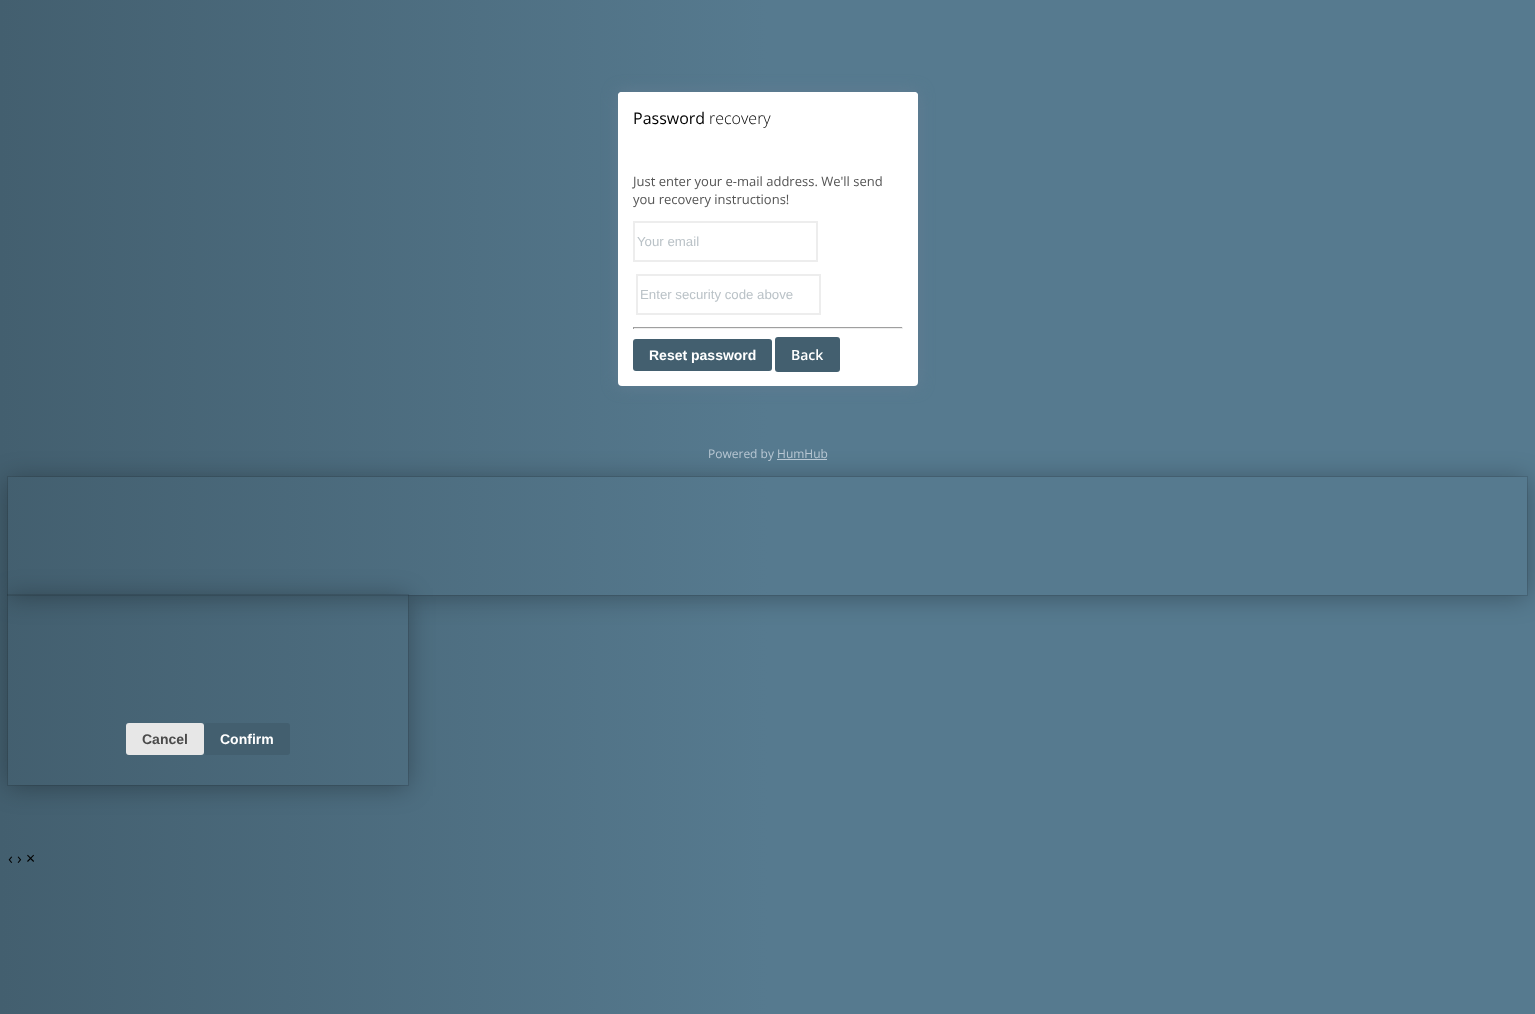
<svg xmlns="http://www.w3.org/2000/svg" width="1535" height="1014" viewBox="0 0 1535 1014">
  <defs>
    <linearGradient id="g1" gradientUnits="userSpaceOnUse" x1="0" y1="443" x2="1535" y2="442"><stop offset="0" stop-color="rgb(67,95,111)"/><stop offset="0.5" stop-color="rgb(86,122,143)"/><stop offset="1" stop-color="rgb(86,122,143)"/></linearGradient>
    <clipPath id="clip1"><path d="M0 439H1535V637H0ZM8 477H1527V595H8Z" clip-rule="evenodd"/></clipPath>
    <clipPath id="clip2"><path d="M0 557H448V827H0ZM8 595H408V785H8Z" clip-rule="evenodd"/></clipPath>
  </defs>
  <rect width="100%" height="100%" fill="rgb(255,255,255)"/>
  <rect x="0" y="0" width="1535" height="1014" fill="url(#g1)"/>
  <rect x="618" y="92" width="300" height="294" rx="4" fill="rgb(98,125,146)" filter="blur(7.5px)"/>
  <rect x="618" y="92" width="300" height="294" rx="4" fill="rgb(255,255,255)"/>
  <rect x="618" y="92" width="300" height="52" rx="4" fill="rgb(255,255,255)"/>
  <text x="633" y="124" font-family="Open Sans" font-size="16" fill="rgb(0,0,0)">Password</text>
  <text x="709" y="124" font-family="Open Sans" font-size="16" font-weight="300" fill="rgb(0,0,0)">recovery</text>
  <g font-family="Open Sans" font-size="13" fill="rgb(85,85,85)">
    <text>
      <tspan x="633" y="186">Just enter your e-mail address. We'll send</tspan>
      <tspan x="633" y="204">you recovery instructions!</tspan>
    </text>
  </g>
  <rect x="634" y="222" width="183" height="39" fill="none" stroke="rgb(237,237,237)" stroke-width="2"/>
  <text x="637" y="246" font-family="Liberation Sans" font-size="13.25" fill="rgb(186,194,199)">Your email</text>
  <rect x="637" y="275" width="183" height="39" fill="none" stroke="rgb(237,237,237)" stroke-width="2"/>
  <text x="640" y="299" font-family="Liberation Sans" font-size="13.25" fill="rgb(186,194,199)">Enter security code above</text>
  <rect x="633" y="327" width="270" height="1" fill="rgb(159,159,159)"/>
  <rect x="902" y="327" width="1" height="2" fill="rgb(238,238,238)"/>
  <rect x="633" y="328" width="270" height="1" fill="rgb(238,238,238)"/>
  <rect x="633" y="327" width="1" height="2" fill="rgb(159,159,159)"/>
  <rect x="633" y="339" width="139" height="32" rx="3" fill="rgb(67,95,111)"/>
  <text x="649" y="360" font-family="Liberation Sans" font-size="14" font-weight="bold" fill="rgb(255,255,255)">Reset password</text>
  <rect x="775" y="337" width="65" height="35" rx="3" fill="rgb(67,95,111)"/>
  <text x="791" y="360" font-family="Open Sans" font-size="14" font-weight="600" fill="rgb(255,255,255)">Back</text>
  <rect x="7.5" y="476.5" width="1520" height="119" fill="none" stroke="rgba(0,0,0,0.1)"/>
  <g clip-path="url(#clip1)">
    <rect x="8" y="479" width="1519" height="118" fill="rgba(0,0,0,0.3)" filter="blur(13px)"/>
  </g>
  <text x="708" y="458" font-family="Open Sans" font-size="12" fill="rgb(184,199,211)">Powered by HumHub</text>
  <rect x="777" y="459" width="50" height="1" fill="rgb(184,199,211)"/>
  <rect x="7.5" y="594.5" width="401" height="191" fill="none" stroke="rgba(0,0,0,0.1)"/>
  <g clip-path="url(#clip2)">
    <rect x="8" y="597" width="400" height="190" fill="rgba(0,0,0,0.3)" filter="blur(13px)"/>
  </g>
  <rect x="126" y="723" width="78" height="32" rx="3" fill="rgb(231,231,231)"/>
  <text x="142" y="744" font-family="Liberation Sans" font-size="14" font-weight="bold" fill="rgb(75,75,75)">Cancel</text>
  <rect x="204" y="723" width="86" height="32" rx="3" fill="rgb(67,95,111)"/>
  <text x="220" y="744" font-family="Liberation Sans" font-size="14" font-weight="bold" fill="rgb(255,255,255)">Confirm</text>
  <text x="8" y="864" font-family="Open Sans" font-size="16" fill="rgb(0,0,0)">‹ › ×</text>
</svg>
